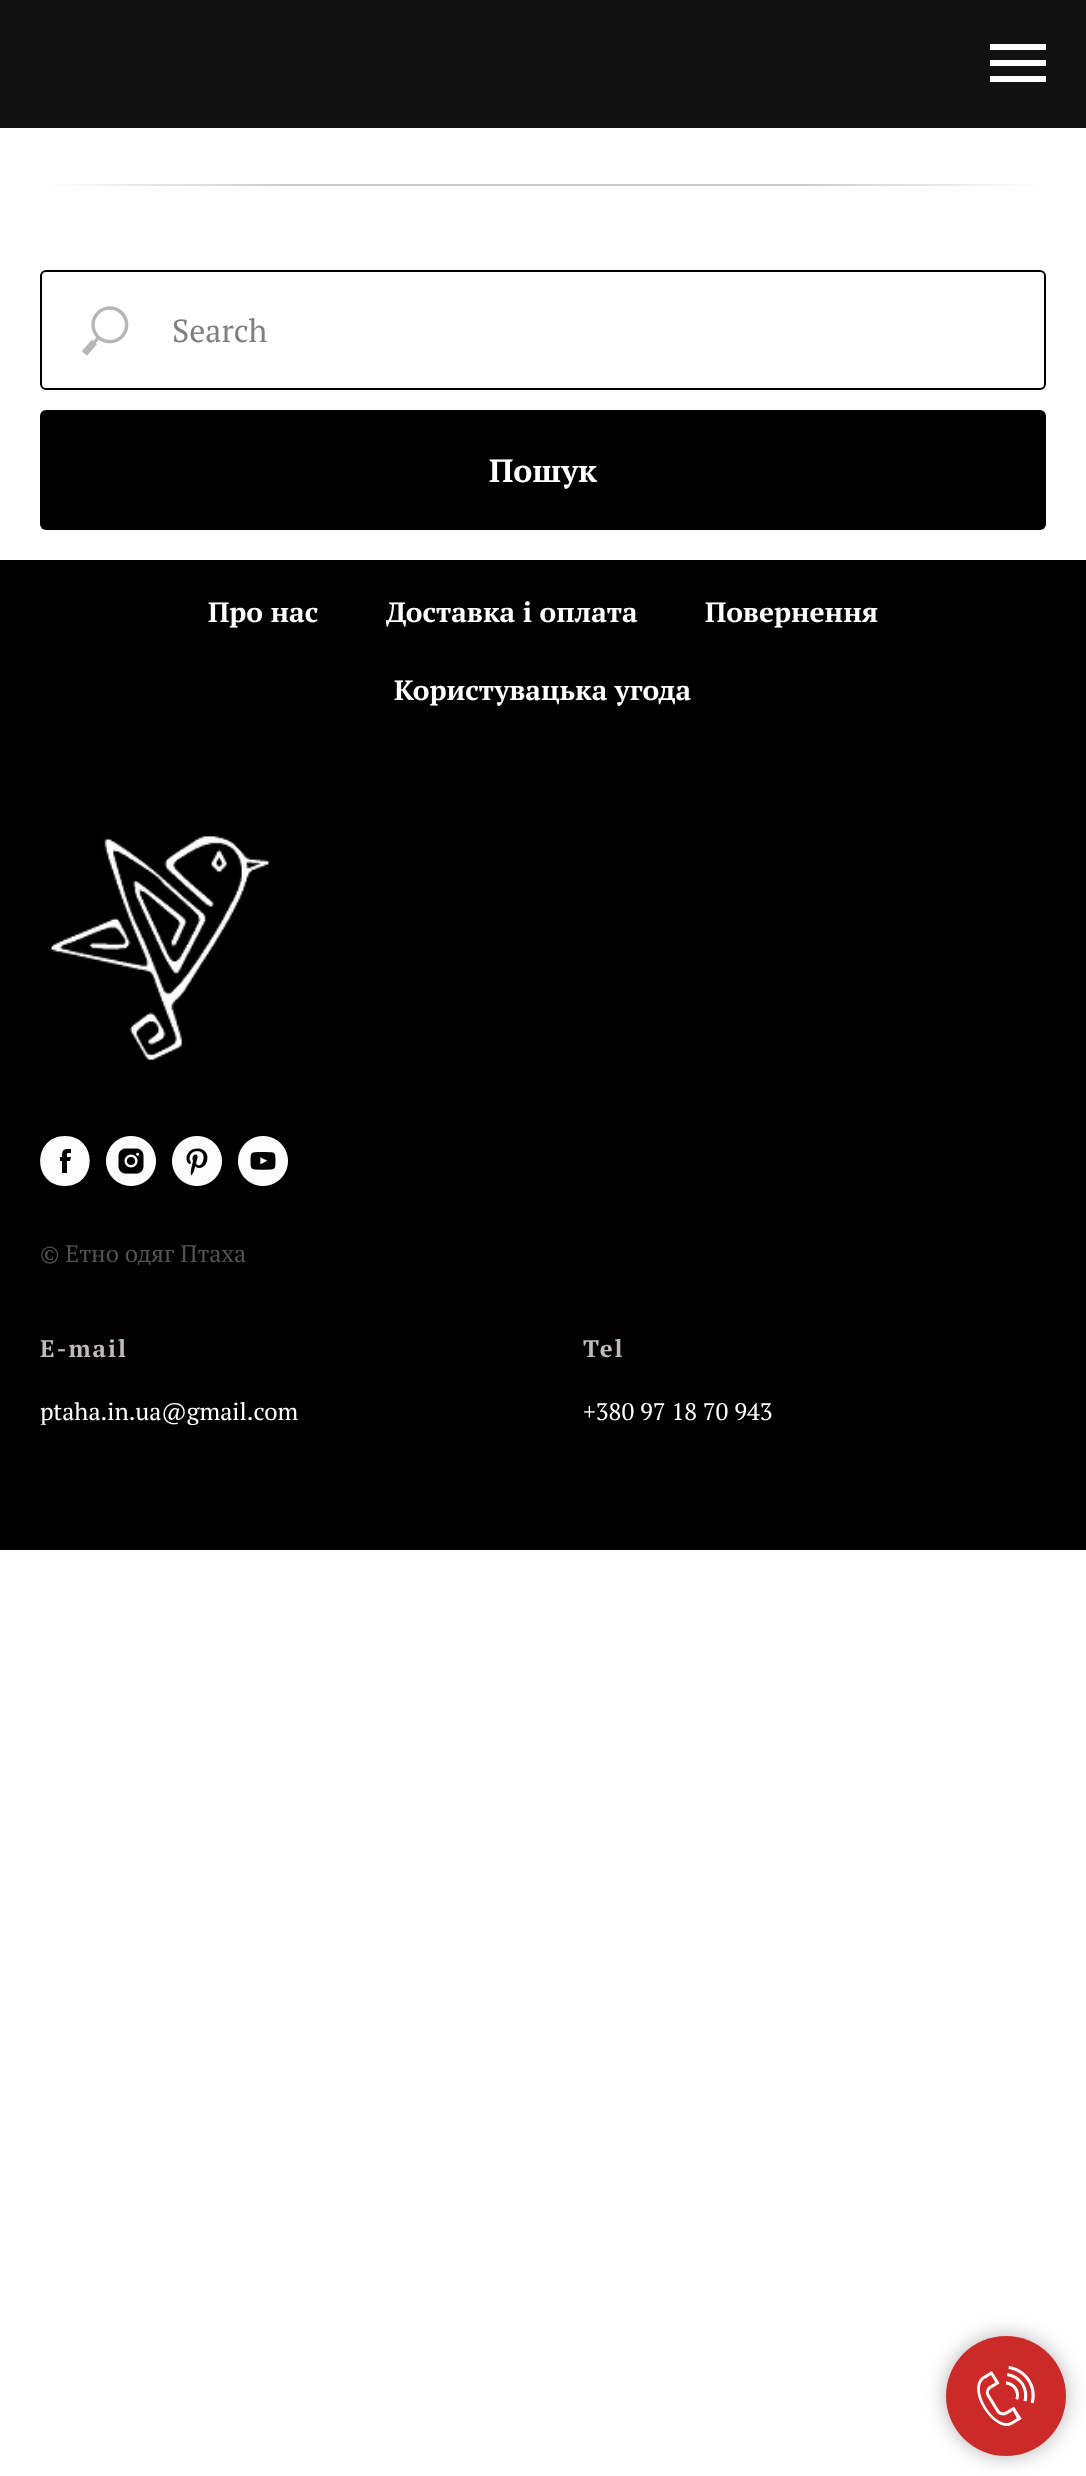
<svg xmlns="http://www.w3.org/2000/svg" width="1086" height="2476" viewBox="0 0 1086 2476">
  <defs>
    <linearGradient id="g1" gradientUnits="userSpaceOnUse" x1="280" y1="185" x2="40" y2="185"><stop offset="0" stop-color="rgb(204,204,204)"/><stop offset="1" stop-color="rgb(255,255,255)"/></linearGradient>
    <linearGradient id="g2" gradientUnits="userSpaceOnUse" x1="806" y1="185" x2="1046" y2="185"><stop offset="0" stop-color="rgb(204,204,204)"/><stop offset="1" stop-color="rgb(255,255,255)"/></linearGradient>
  </defs>
  <rect width="100%" height="100%" fill="rgb(255,255,255)"/>
  <rect x="0" y="0" width="1086" height="128" fill="rgb(17,17,17)"/>
  <rect x="990" y="44" width="56" height="6" fill="rgb(255,255,255)"/>
  <rect x="990" y="60" width="56" height="6" fill="rgb(255,255,255)"/>
  <rect x="990" y="76" width="56" height="6" fill="rgb(255,255,255)"/>
  <rect x="52" y="184" width="228" height="2" fill="url(#g1)"/>
  <rect x="280" y="184" width="526" height="2" fill="rgb(204,204,204)"/>
  <rect x="806" y="184" width="228" height="2" fill="url(#g2)"/>
  <rect x="41" y="271" width="1004" height="118" rx="5" fill="none" stroke="rgb(0,0,0)" stroke-width="2"/>
  <image x="82" y="306" width="47" height="50" href="pic1.png"/>
  <text x="172" y="342" font-family="PT Serif" font-size="32" fill="rgb(128,128,128)">Search</text>
  <rect x="40" y="410" width="1006" height="120" rx="6" fill="rgb(0,0,0)"/>
  <text x="489" y="482" font-family="PT Serif" font-size="32" font-weight="bold" fill="rgb(255,255,255)">Пошук</text>
  <rect x="0" y="560" width="1086" height="990" fill="rgb(0,0,0)"/>
  <g font-family="PT Serif" font-size="28" font-weight="bold" fill="rgb(255,255,255)">
    <text x="208" y="622">Про нас</text>
    <text x="386" y="622">Доставка і оплата</text>
    <text x="705" y="622">Повернення</text>
    <text x="394" y="700">Користувацька угода</text>
  </g>
  <image x="49" y="833" width="222" height="228" href="pic2.png"/>
  <path d="M65 1186C98 1186 98 1136 65 1136C32 1136 32 1186 65 1186ZM67 1149C62 1149 62 1153 62 1157H60V1161H62V1173H67V1161H70L71 1157H67C67 1153 66 1153 71 1153V1149Z" fill="rgb(252,252,252)" fill-rule="evenodd"/>
  <image x="106" y="1136" width="50" height="50" href="pic3.png"/>
  <image x="172" y="1136" width="50" height="50" href="pic4.png"/>
  <image x="238" y="1136" width="50" height="50" href="pic5.png"/>
  <text x="40" y="1262" font-family="PT Serif" font-size="24" fill="rgb(82,82,82)">© Етно одяг Птаха</text>
  <text x="40" y="1357" font-family="PT Serif" font-size="24" font-weight="bold" letter-spacing="2" fill="rgb(194,186,186)">E-mail</text>
  <text x="40" y="1420" font-family="PT Serif" font-size="24" fill="rgb(255,255,255)">ptaha.in.ua@gmail.com</text>
  <text x="583" y="1357" font-family="PT Serif" font-size="24" font-weight="bold" letter-spacing="2" fill="rgb(194,186,186)">Tel</text>
  <text x="583" y="1420" font-family="PT Serif" font-size="24" fill="rgb(255,255,255)">+380 97 18 70 943</text>
  <rect x="946" y="2336" width="120" height="120" rx="60" fill="rgba(0,0,0,0.3)" filter="blur(10px)"/>
  <circle cx="1006" cy="2396" r="60" fill="rgb(204,41,41)"/>
  <image x="977" y="2366" width="58" height="60" href="pic6.png"/>
</svg>
